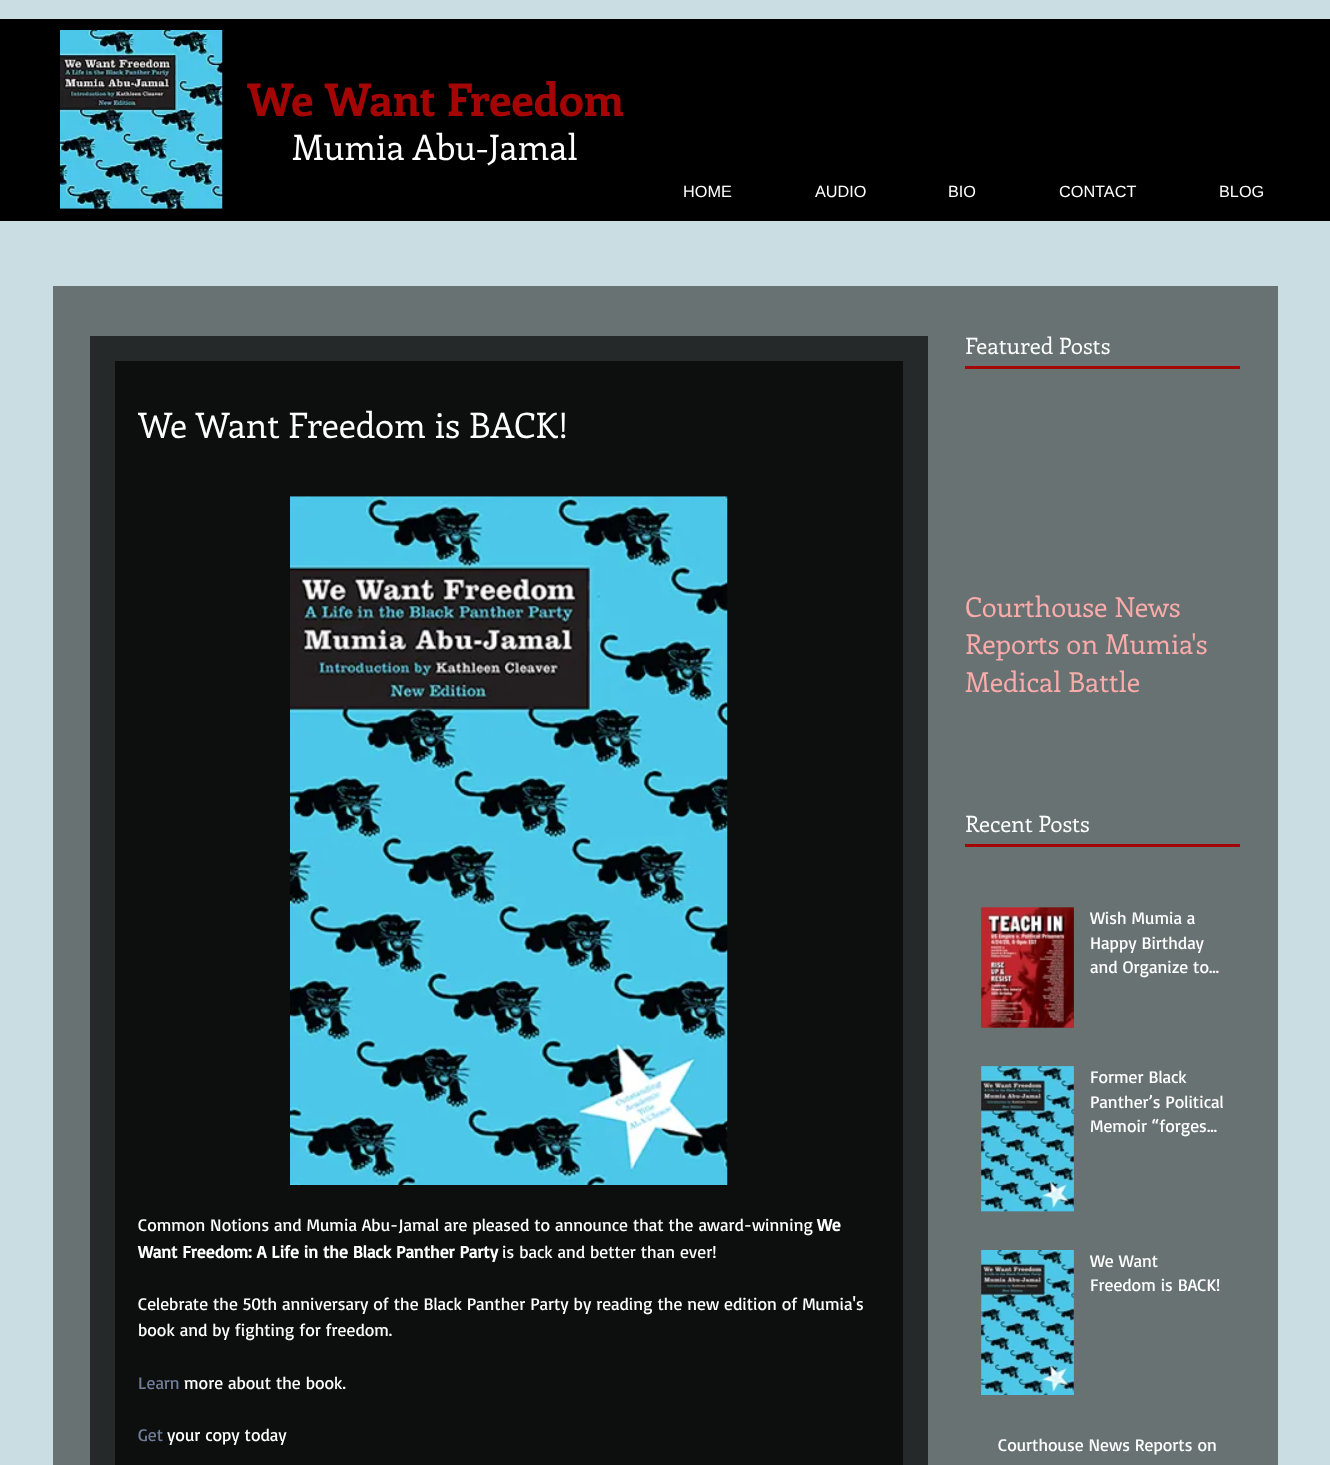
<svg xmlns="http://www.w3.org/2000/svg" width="1330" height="1465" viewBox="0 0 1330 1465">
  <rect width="100%" height="100%" fill="rgb(202,221,227)"/>
  <rect x="0" y="19" width="1330" height="202" fill="rgb(0,0,0)"/>
  <image x="60" y="30" width="163" height="179" href="pic1.png"/>
  <text x="247" y="116" font-family="Enriqueta" font-size="45" font-weight="bold" fill="rgb(164,6,6)">We Want Freedom</text>
  <text x="292" y="160" font-family="Enriqueta" font-size="35" fill="rgb(255,255,255)">Mumia Abu-Jamal</text>
  <g font-family="Liberation Sans" font-size="16.25" fill="rgb(255,255,255)">
    <text x="683" y="197">HOME</text>
    <text x="815" y="197">AUDIO</text>
    <text x="948" y="197">BIO</text>
    <text x="1059" y="197">CONTACT</text>
    <text x="1219" y="197">BLOG</text>
  </g>
  <rect x="53" y="286" width="1225" height="1179" fill="rgb(104,114,115)"/>
  <text x="965" y="354" font-family="Enriqueta" font-size="22.5" fill="rgb(255,255,255)">Featured Posts</text>
  <rect x="965" y="366" width="275" height="3" fill="rgb(164,6,6)"/>
  <rect x="90" y="336" width="838" height="1129" fill="rgb(37,41,41)"/>
  <rect x="115" y="361" width="788" height="1104" fill="rgb(13,15,15)"/>
  <text x="138" y="438" font-family="Enriqueta" font-size="35" fill="rgb(255,255,255)">We Want Freedom is BACK!</text>
  <image x="290" y="496" width="438" height="689" href="pic2.png"/>
  <text x="138" y="1231" font-family="Basic" font-size="17.5" fill="rgb(255,255,255)">Common Notions and Mumia Abu-Jamal are pleased to announce that the award-winning</text>
  <g font-family="Basic" font-size="17.5" font-weight="bold" fill="rgb(255,255,255)">
    <text x="817" y="1231">We</text>
    <text x="138" y="1258">Want Freedom: A Life in the Black Panther Party</text>
  </g>
  <g font-family="Basic" font-size="17.5" fill="rgb(255,255,255)">
    <text x="502" y="1258">is back and better than ever!</text>
    <text>
      <tspan x="138" y="1310">Celebrate the 50th anniversary of the Black Panther Party by reading the new edition of Mumia's</tspan>
      <tspan x="138" y="1336">book and by fighting for freedom.</tspan>
    </text>
  </g>
  <text x="138" y="1389" font-family="Basic" font-size="17.5" fill="rgb(113,125,151)">Learn</text>
  <text x="184" y="1389" font-family="Basic" font-size="17.5" fill="rgb(255,255,255)">more about the book.</text>
  <text x="138" y="1441" font-family="Basic" font-size="17.5" fill="rgb(113,125,151)">Get</text>
  <text x="167" y="1441" font-family="Basic" font-size="17.5" fill="rgb(255,255,255)">your copy today</text>
  <g font-family="Enriqueta" font-size="27.5" fill="rgb(252,171,171)">
    <text>
      <tspan x="965" y="617">Courthouse News</tspan>
      <tspan x="965" y="654">Reports on Mumia's</tspan>
      <tspan x="965" y="692">Medical Battle</tspan>
    </text>
  </g>
  <text x="965" y="832" font-family="Enriqueta" font-size="22.5" fill="rgb(255,255,255)">Recent Posts</text>
  <rect x="965" y="844" width="275" height="3" fill="rgb(164,6,6)"/>
  <image x="981" y="907" width="93" height="121" href="pic3.png"/>
  <image x="981" y="907" width="93" height="121" href="pic4.png"/>
  <g font-family="Basic" font-size="17.5" fill="rgb(255,255,255)">
    <text>
      <tspan x="1090" y="924">Wish Mumia a</tspan>
      <tspan x="1090" y="949">Happy Birthday</tspan>
      <tspan x="1090" y="973">and Organize to…</tspan>
    </text>
  </g>
  <image x="981" y="1066" width="93" height="146" href="pic5.png"/>
  <image x="981" y="1066" width="93" height="146" href="pic6.png"/>
  <g font-family="Basic" font-size="17.5" fill="rgb(255,255,255)">
    <text>
      <tspan x="1090" y="1083">Former Black</tspan>
      <tspan x="1090" y="1108">Panther’s Political</tspan>
      <tspan x="1090" y="1132">Memoir “forges…</tspan>
    </text>
  </g>
  <image x="981" y="1250" width="93" height="145" href="pic7.png"/>
  <image x="981" y="1250" width="93" height="145" href="pic8.png"/>
  <g font-family="Basic" font-size="17.5" fill="rgb(255,255,255)">
    <text>
      <tspan x="1090" y="1267">We Want</tspan>
      <tspan x="1090" y="1291">Freedom is BACK!</tspan>
    </text>
    <text x="998" y="1451">Courthouse News Reports on</text>
  </g>
</svg>
